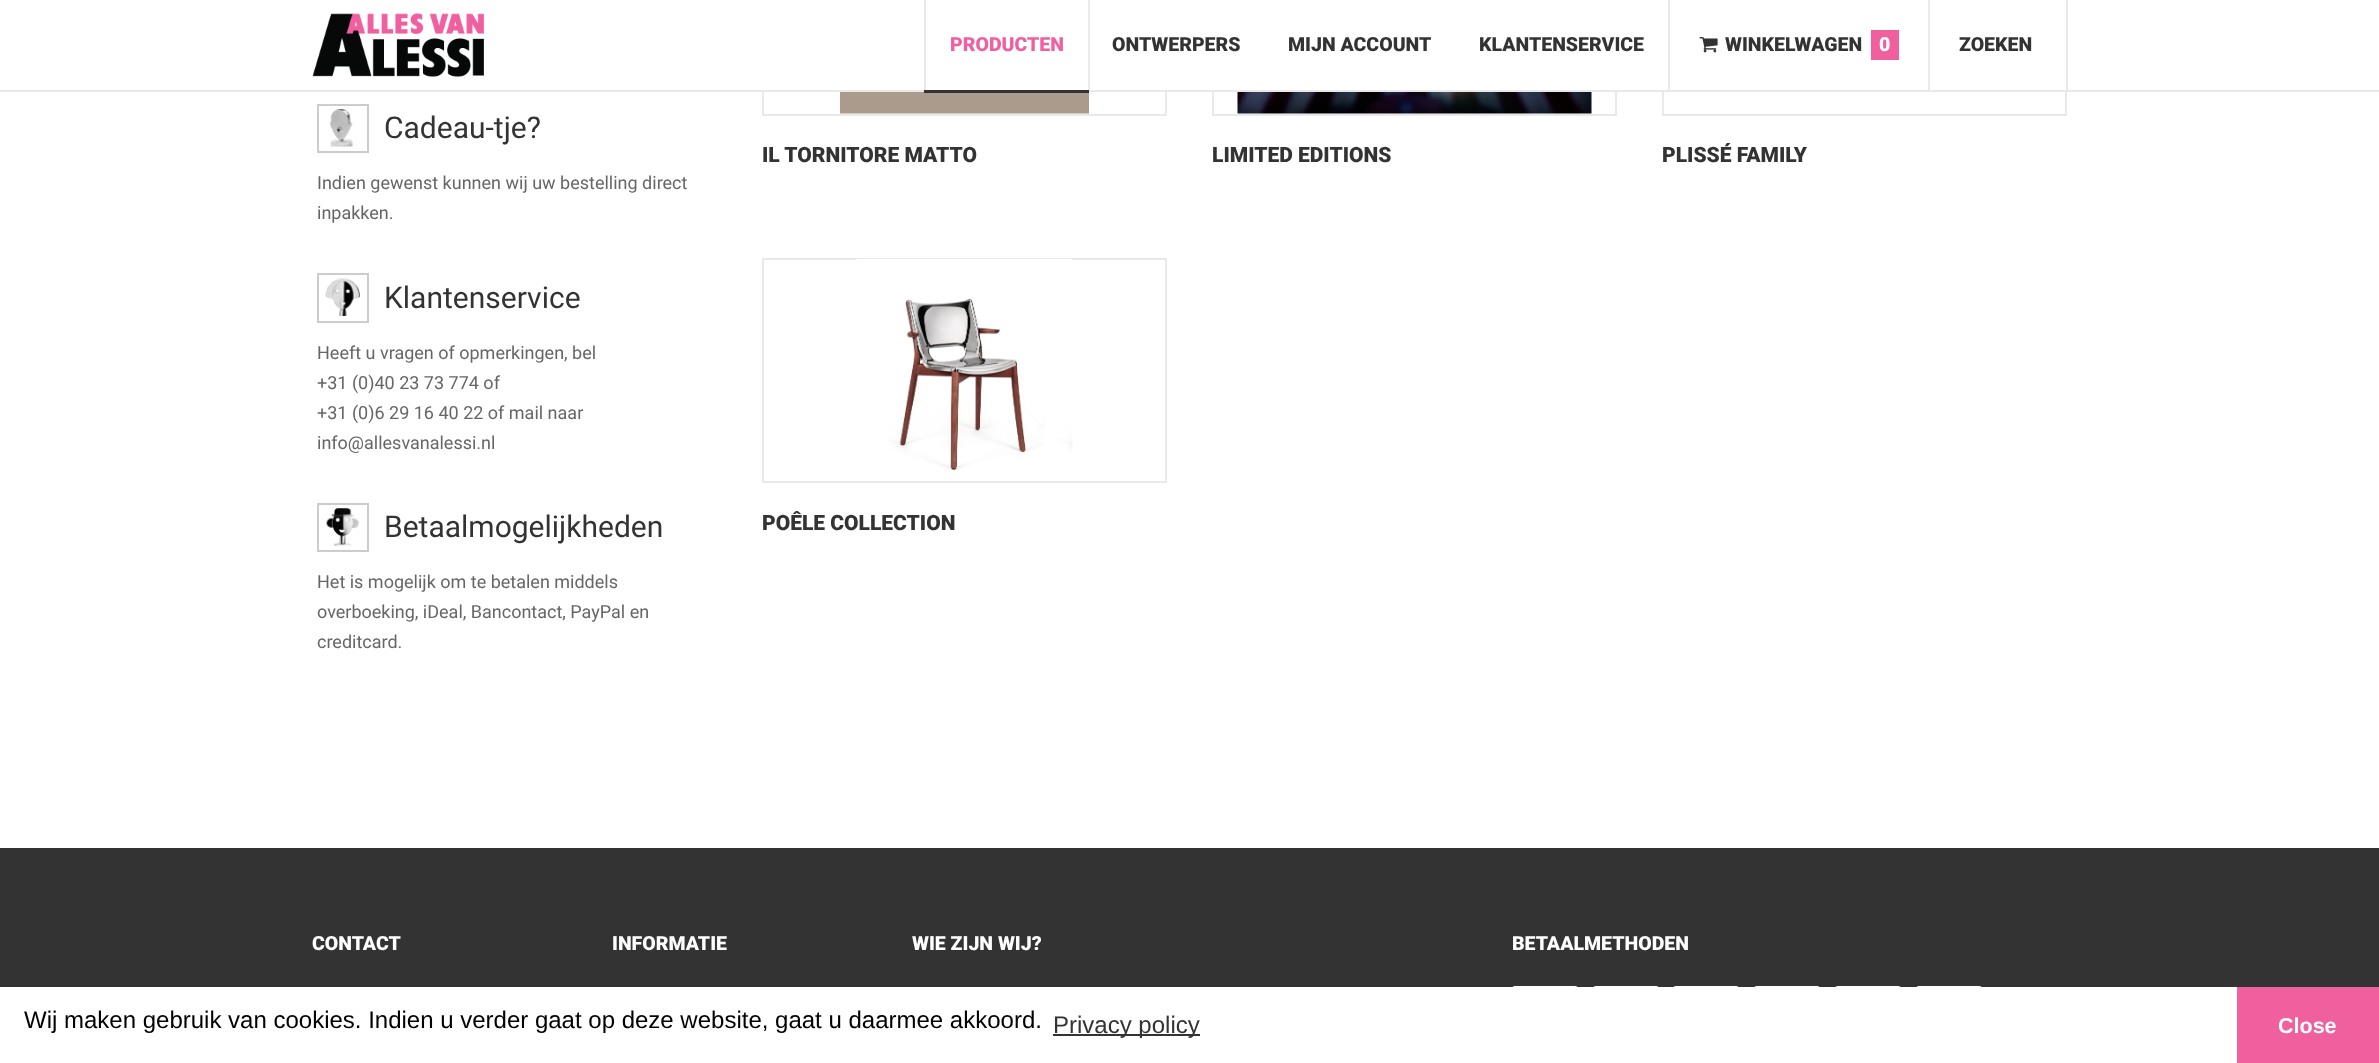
<svg xmlns="http://www.w3.org/2000/svg" width="2379" height="1063" viewBox="0 0 2379 1063">
  <rect width="100%" height="100%" fill="rgb(255,255,255)"/>
  <rect x="763" y="-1" width="403" height="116" fill="none" stroke="rgb(233,233,233)" stroke-width="2"/>
  <rect x="1213" y="-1" width="403" height="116" fill="none" stroke="rgb(233,233,233)" stroke-width="2"/>
  <rect x="1663" y="-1" width="403" height="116" fill="none" stroke="rgb(233,233,233)" stroke-width="2"/>
  <rect x="0" y="90" width="2379" height="2" fill="rgb(233,233,233)"/>
  <rect x="762" y="0" width="1305" height="90" fill="rgb(255,255,255)"/>
  <image x="312" y="13" width="172" height="64" href="pic1.png"/>
  <rect x="1088" y="0" width="2" height="90" fill="rgb(233,233,233)"/>
  <rect x="924" y="0" width="2" height="90" fill="rgb(233,233,233)"/>
  <text x="950" y="51" font-family="Roboto" font-size="19.5" font-weight="900" fill="rgb(240,96,158)">PRODUCTEN</text>
  <image x="840" y="92" width="249" height="22" href="pic6.png"/>
  <rect x="924" y="90" width="165" height="3" fill="rgb(51,51,51)"/>
  <g font-family="Roboto" font-size="19.5" font-weight="900" fill="rgb(51,51,51)">
    <text x="1112" y="51">ONTWERPERS</text>
    <text x="1288" y="51">MIJN ACCOUNT</text>
    <text x="1479" y="51">KLANTENSERVICE</text>
  </g>
  <rect x="1668" y="0" width="2" height="90" fill="rgb(233,233,233)"/>
  <image x="1699" y="37" width="19" height="16" href="pic2.png"/>
  <text x="1725" y="51" font-family="Roboto" font-size="19.5" font-weight="900" fill="rgb(51,51,51)">WINKELWAGEN</text>
  <rect x="1871" y="30" width="28" height="30" fill="rgb(240,96,158)"/>
  <text x="1879" y="51" font-family="Roboto" font-size="19.5" font-weight="900" fill="rgb(255,255,255)">0</text>
  <rect x="2066" y="0" width="2" height="90" fill="rgb(233,233,233)"/>
  <rect x="1928" y="0" width="2" height="90" fill="rgb(233,233,233)"/>
  <text x="1959" y="51" font-family="Roboto" font-size="19.5" font-weight="900" fill="rgb(51,51,51)">ZOEKEN</text>
  <rect x="318" y="105" width="50" height="47" fill="none" stroke="rgb(204,204,204)" stroke-width="2"/>
  <image x="329" y="109" width="24" height="38" href="pic3.png"/>
  <text x="384" y="138" font-family="Roboto" font-size="30" fill="rgb(51,51,51)">Cadeau-tje?</text>
  <g font-family="Roboto" font-size="18" fill="rgb(102,102,102)">
    <text>
      <tspan x="317" y="189">Indien gewenst kunnen wij uw bestelling direct</tspan>
      <tspan x="317" y="219">inpakken.</tspan>
    </text>
  </g>
  <rect x="318" y="274" width="50" height="48" fill="none" stroke="rgb(204,204,204)" stroke-width="2"/>
  <image x="325" y="278" width="35" height="38" href="pic4.png"/>
  <text x="384" y="308" font-family="Roboto" font-size="30" fill="rgb(51,51,51)">Klantenservice</text>
  <g font-family="Roboto" font-size="18" fill="rgb(102,102,102)">
    <text>
      <tspan x="317" y="359">Heeft u vragen of opmerkingen, bel</tspan>
      <tspan x="317" y="389">+31 (0)40 23 73 774 of</tspan>
      <tspan x="317" y="419">+31 (0)6 29 16 40 22 of mail naar</tspan>
      <tspan x="317" y="449">info@allesvanalessi.nl</tspan>
    </text>
  </g>
  <rect x="318" y="504" width="50" height="47" fill="none" stroke="rgb(204,204,204)" stroke-width="2"/>
  <image x="325" y="508" width="34" height="38" href="pic5.png"/>
  <text x="384" y="537" font-family="Roboto" font-size="30" fill="rgb(51,51,51)">Betaalmogelijkheden</text>
  <g font-family="Roboto" font-size="18" fill="rgb(102,102,102)">
    <text>
      <tspan x="317" y="588">Het is mogelijk om te betalen middels</tspan>
      <tspan x="317" y="618">overboeking, iDeal, Bancontact, PayPal en</tspan>
      <tspan x="317" y="648">creditcard.</tspan>
    </text>
  </g>
  <text x="762" y="162" font-family="Roboto" font-size="21" font-weight="900" fill="rgb(51,51,51)">IL TORNITORE MATTO</text>
  <image x="1237" y="92" width="355" height="22" href="pic7.png"/>
  <g font-family="Roboto" font-size="21" font-weight="900" fill="rgb(51,51,51)">
    <text x="1212" y="162">LIMITED EDITIONS</text>
    <text x="1662" y="162">PLISSÉ FAMILY</text>
  </g>
  <rect x="763" y="259" width="403" height="223" fill="none" stroke="rgb(233,233,233)" stroke-width="2"/>
  <image x="856" y="259" width="217" height="212" href="pic8.png"/>
  <text x="762" y="530" font-family="Roboto" font-size="21" font-weight="900" fill="rgb(51,51,51)">POÊLE COLLECTION</text>
  <rect x="0" y="848" width="2379" height="139" fill="rgb(51,51,51)"/>
  <g font-family="Roboto" font-size="19.5" font-weight="900" fill="rgb(255,255,255)">
    <text x="312" y="950">CONTACT</text>
    <text x="612" y="950">INFORMATIE</text>
    <text x="912" y="950">WIE ZIJN WIJ?</text>
    <text x="1512" y="950">BETAALMETHODEN</text>
  </g>
  <rect x="1512" y="986" width="66" height="66" rx="3" fill="rgb(255,255,255)"/>
  <rect x="1593" y="986" width="66" height="66" rx="3" fill="rgb(255,255,255)"/>
  <rect x="1673" y="986" width="66" height="66" rx="3" fill="rgb(255,255,255)"/>
  <rect x="1754" y="986" width="66" height="66" rx="3" fill="rgb(255,255,255)"/>
  <rect x="1835" y="986" width="66" height="66" rx="3" fill="rgb(255,255,255)"/>
  <rect x="1916" y="986" width="66" height="66" rx="3" fill="rgb(255,255,255)"/>
  <text x="24" y="1028" font-family="Liberation Sans" font-size="24" fill="rgb(0,0,0)">Wij maken gebruik van cookies. Indien u verder gaat op deze website, gaat u daarmee akkoord.</text>
  <rect x="1053" y="1034" width="147" height="2" fill="rgb(51,51,51)"/>
  <text x="1053" y="1033" font-family="Liberation Sans" font-size="24" fill="rgb(51,51,51)">Privacy policy</text>
  <rect x="2237" y="987" width="142" height="76" fill="rgb(240,96,158)"/>
  <text x="2278" y="1033" font-family="Liberation Sans" font-size="21.5" font-weight="bold" fill="rgb(255,255,255)">Close</text>
</svg>
